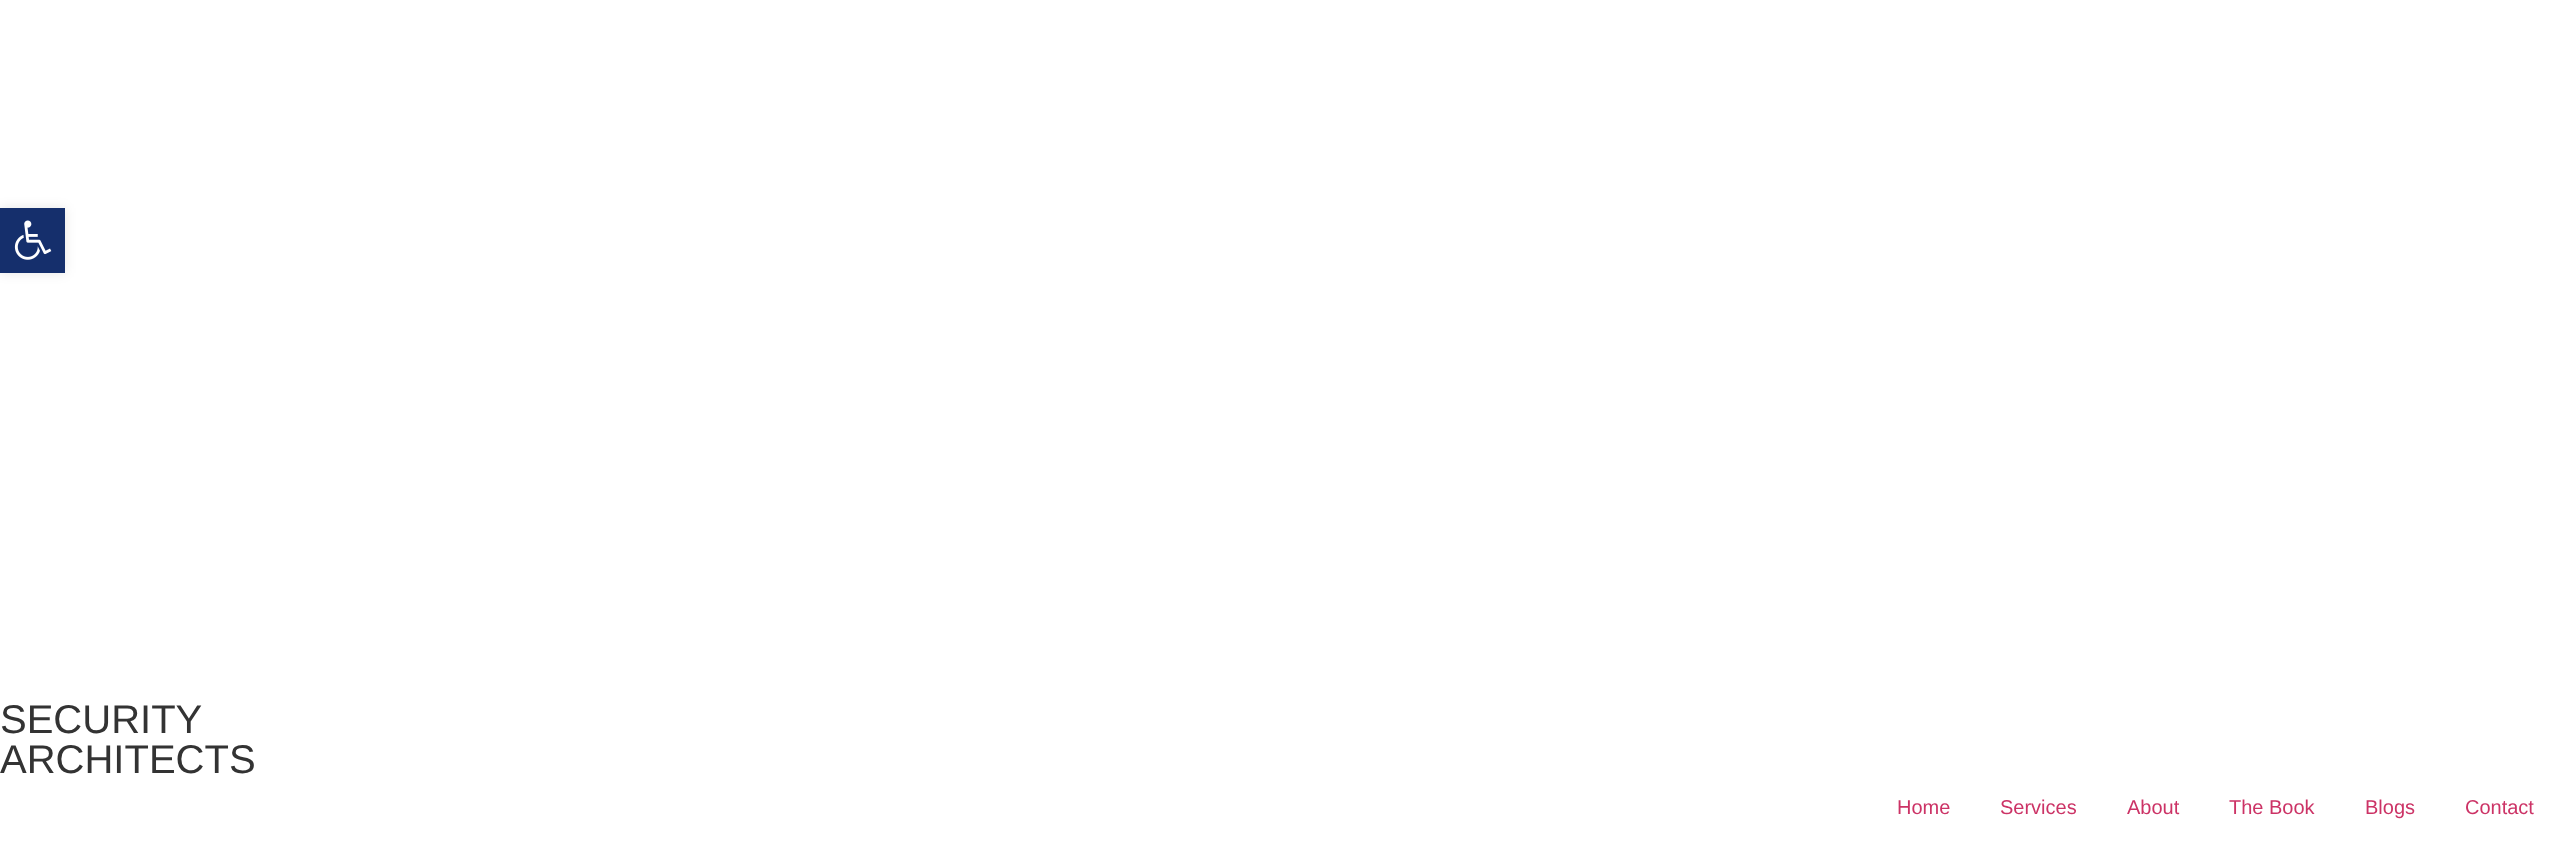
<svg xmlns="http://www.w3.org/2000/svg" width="2558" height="851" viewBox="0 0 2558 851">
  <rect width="100%" height="100%" fill="rgb(255,255,255)"/>
  <rect x="0" y="208" width="65" height="65" fill="rgba(0,0,0,0.1)" filter="blur(6px)"/>
  <rect x="0" y="208" width="65" height="65" fill="rgb(21,47,108)"/>
  <image x="14" y="220" width="38" height="40" href="pic1.png"/>
  <g font-family="Liberation Sans" font-size="40" fill="rgb(51,51,51)">
    <text>
      <tspan x="0" y="733">SECURITY</tspan>
      <tspan x="0" y="773">ARCHITECTS</tspan>
    </text>
  </g>
  <g font-family="Liberation Sans" font-size="20" fill="rgb(204,51,102)">
    <text x="1897" y="814">Home</text>
    <text x="2000" y="814">Services</text>
    <text x="2127" y="814">About</text>
    <text x="2229" y="814">The Book</text>
    <text x="2365" y="814">Blogs</text>
    <text x="2465" y="814">Contact</text>
  </g>
</svg>
